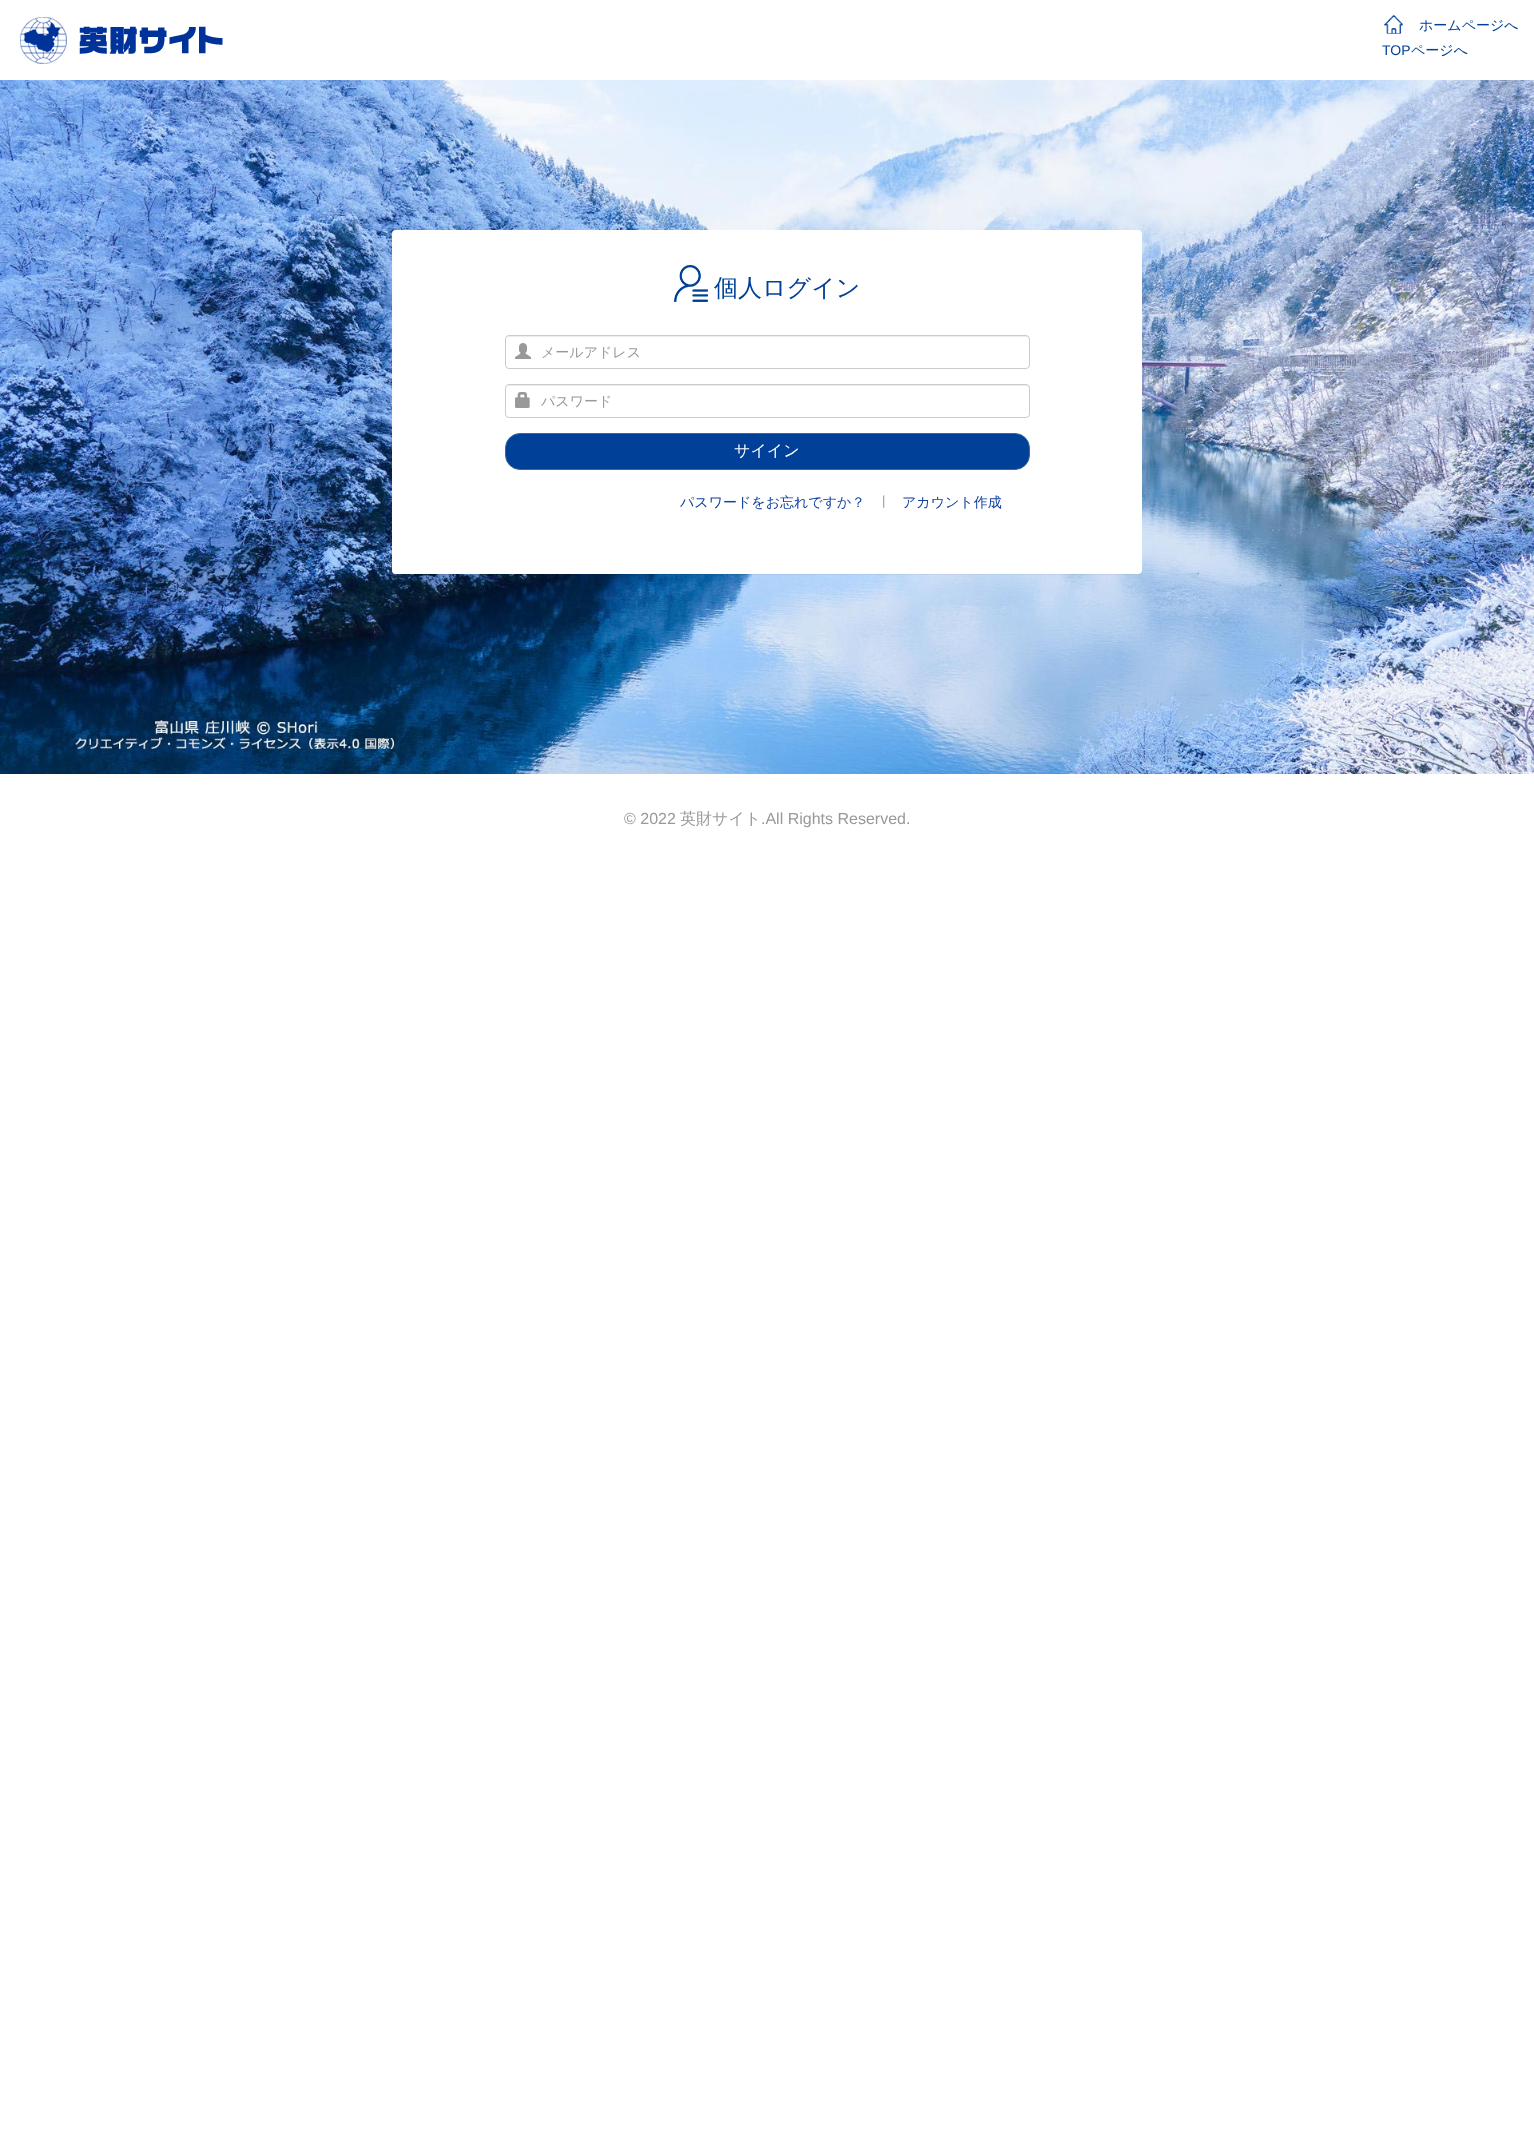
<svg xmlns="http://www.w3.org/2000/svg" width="1534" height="2140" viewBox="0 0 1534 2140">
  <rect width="100%" height="100%" fill="rgb(255,255,255)"/>
  <image x="20" y="17" width="203" height="47" href="pic1.png"/>
  <image x="1384" y="15" width="19" height="19" href="pic2.png"/>
  <text x="1419" y="30" font-family="WenQuanYi Zen Hei" font-size="14" font-weight="500" fill="rgb(0,64,152)">ホームページへ</text>
  <text x="1382" y="55" font-family="Liberation Sans" font-size="14" fill="rgb(0,64,152)">TOP</text>
  <text x="1411" y="55" font-family="WenQuanYi Zen Hei" font-size="14" font-weight="500" fill="rgb(0,64,152)">ページへ</text>
  <image x="0" y="80" width="1534" height="694" href="pic3.png"/>
  <rect x="392" y="231" width="750" height="344" rx="4" fill="rgba(0,0,0,0.05)" filter="blur(0.5px)"/>
  <rect x="392" y="230" width="750" height="344" rx="4" fill="rgb(255,255,255)"/>
  <image x="674" y="265" width="34" height="37" href="pic4.png"/>
  <text x="714" y="296" font-family="WenQuanYi Zen Hei" font-size="24" font-weight="500" fill="rgb(0,64,152)">個人ログイン</text>
  <path d="M509 337H1026C1028 337 1029 338 1029 340V338L1027 336H509C507 336 506 338 506 340C506 338 507 337 509 337Z" fill="rgb(236,236,236)"/>
  <rect x="505.5" y="335.5" width="524" height="33" rx="3.5" fill="none" stroke="rgb(204,204,204)"/>
  <image x="515" y="343" width="16" height="16" href="pic5.png"/>
  <text x="541" y="357" font-family="WenQuanYi Zen Hei" font-size="14" font-weight="500" fill="rgb(153,153,153)">メールアドレス</text>
  <path d="M509 386H1026C1028 386 1029 387 1029 389V387L1027 385H509C507 385 506 387 506 389C506 387 507 386 509 386Z" fill="rgb(236,236,236)"/>
  <rect x="505.5" y="384.5" width="524" height="33" rx="3.5" fill="none" stroke="rgb(204,204,204)"/>
  <image x="515" y="392" width="15" height="16" href="pic6.png"/>
  <text x="541" y="406" font-family="WenQuanYi Zen Hei" font-size="14" font-weight="500" fill="rgb(153,153,153)">パスワード</text>
  <rect x="505.5" y="433.5" width="524" height="36" rx="14.5" fill="rgb(0,64,152)" stroke="rgb(46,109,164)"/>
  <text x="734" y="456" font-family="WenQuanYi Zen Hei" font-size="16" font-weight="500" fill="rgb(255,255,255)">サイイン</text>
  <text x="680" y="507" font-family="WenQuanYi Zen Hei" font-size="14" font-weight="500" fill="rgb(17,65,160)">パスワードをお忘れですか？</text>
  <text x="882" y="505" font-family="Liberation Sans" font-size="13" fill="rgb(153,153,153)">|</text>
  <text x="902" y="507" font-family="WenQuanYi Zen Hei" font-size="14" font-weight="500" fill="rgb(17,65,160)">アカウント作成</text>
  <text x="624" y="824" font-family="Liberation Sans" font-size="16" fill="rgb(153,153,153)">© 2022</text>
  <text x="680" y="824" font-family="WenQuanYi Zen Hei" font-size="16" font-weight="500" fill="rgb(153,153,153)">英財サイト</text>
  <text x="761" y="824" font-family="Liberation Sans" font-size="16" fill="rgb(153,153,153)">.All Rights Reserved.</text>
</svg>
